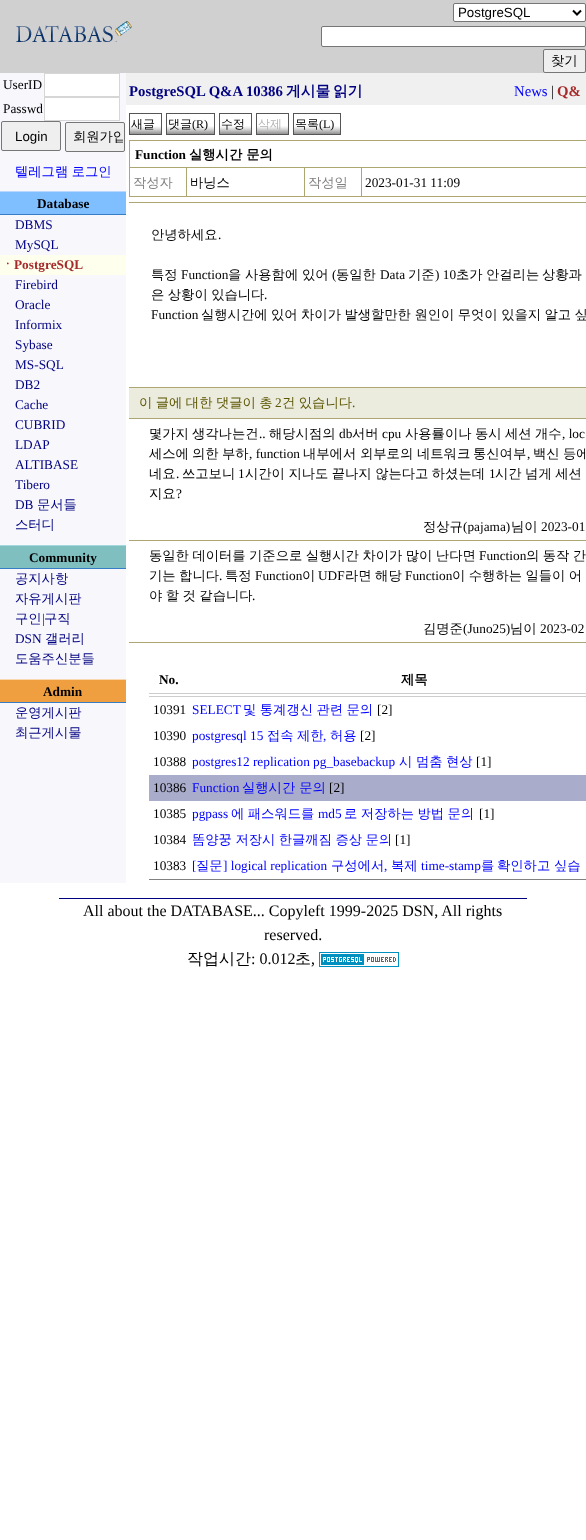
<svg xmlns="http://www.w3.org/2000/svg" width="586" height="1540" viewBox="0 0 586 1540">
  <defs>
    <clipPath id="clip1"><rect x="67" y="124" width="56" height="26"/></clipPath>
  </defs>
  <rect width="100%" height="100%" fill="rgb(255,255,255)"/>
  <rect x="0" y="0" width="586" height="73" fill="rgb(208,208,208)"/>
  <image x="16" y="21" width="116" height="22" href="pic1.png"/>
  <rect x="453.5" y="3.5" width="132" height="18" rx="1.5" fill="rgb(255,255,255)" stroke="rgb(118,118,118)"/>
  <path d="M573 10.5L577 14.5L581 10.5" fill="none" stroke="rgb(0,0,0)" stroke-width="2"/>
  <text x="458" y="17" font-family="Liberation Sans" font-size="13.3" fill="rgb(0,0,0)">PostgreSQL</text>
  <rect x="321.5" y="26.5" width="264" height="20" rx="1.5" fill="rgb(255,255,255)" stroke="rgb(118,118,118)"/>
  <rect x="543.5" y="49.5" width="42" height="23" rx="1.5" fill="rgb(239,239,239)" stroke="rgb(118,118,118)"/>
  <text x="551" y="65" font-family="WenQuanYi Zen Hei" font-size="13.3" font-weight="500" fill="rgb(0,0,0)">찾기</text>
  <rect x="0" y="73" width="126" height="810" fill="rgb(247,247,252)"/>
  <text x="3" y="89" font-family="Liberation Serif" font-size="13.3" fill="rgb(0,0,0)">UserID</text>
  <rect x="44.5" y="73.5" width="75" height="23" fill="rgb(255,255,255)" stroke="rgb(214,214,214)"/>
  <text x="3" y="113" font-family="Liberation Serif" font-size="13.3" fill="rgb(0,0,0)">Passwd</text>
  <rect x="44.5" y="97.5" width="75" height="23" fill="rgb(255,255,255)" stroke="rgb(214,214,214)"/>
  <rect x="1.5" y="121.5" width="59" height="29" rx="1.5" fill="rgb(239,239,239)" stroke="rgb(118,118,118)"/>
  <text x="15" y="141" font-family="Liberation Sans" font-size="13.3" fill="rgb(0,0,0)">Login</text>
  <rect x="65.5" y="122.5" width="59" height="29" rx="1.5" fill="rgb(239,239,239)" stroke="rgb(118,118,118)"/>
  <g clip-path="url(#clip1)">
    <text x="73" y="141" font-family="WenQuanYi Zen Hei" font-size="13.3" font-weight="500" fill="rgb(0,0,0)">회원가입</text>
  </g>
  <text x="15" y="176" word-spacing="-0.5" font-family="WenQuanYi Zen Hei" font-size="13.3" font-weight="500" fill="rgb(0,0,255)">텔레그램 로그인</text>
  <rect x="0" y="192" width="126" height="22" fill="rgb(128,191,255)"/>
  <rect x="0" y="191" width="126" height="1" fill="rgb(187,215,252)"/>
  <rect x="0" y="214" width="126" height="1" fill="rgb(55,125,197)"/>
  <text x="37" y="208" font-family="Liberation Serif" font-size="13.3" font-weight="bold" fill="rgb(0,0,0)">Database</text>
  <g font-family="Liberation Serif" font-size="13.3" fill="rgb(0,0,128)">
    <text>
      <tspan x="15" y="229">DBMS</tspan>
      <tspan x="15" y="249">MySQL</tspan>
    </text>
  </g>
  <rect x="0" y="255" width="126" height="20" fill="rgb(255,255,238)"/>
  <text x="1" y="269" font-family="WenQuanYi Zen Hei" font-size="13.3" font-weight="bold" fill="rgb(165,42,42)">ㆍ</text>
  <text x="14" y="269" font-family="Liberation Serif" font-size="13.3" font-weight="bold" fill="rgb(165,42,42)">PostgreSQL</text>
  <g font-family="Liberation Serif" font-size="13.3" fill="rgb(0,0,128)">
    <text>
      <tspan x="15" y="289">Firebird</tspan>
      <tspan x="15" y="309">Oracle</tspan>
      <tspan x="15" y="329">Informix</tspan>
      <tspan x="15" y="349">Sybase</tspan>
      <tspan x="15" y="369">MS-SQL</tspan>
      <tspan x="15" y="389">DB2</tspan>
      <tspan x="15" y="409">Cache</tspan>
      <tspan x="15" y="429">CUBRID</tspan>
      <tspan x="15" y="449">LDAP</tspan>
      <tspan x="15" y="469">ALTIBASE</tspan>
      <tspan x="15" y="489">Tibero</tspan>
      <tspan x="15" y="509">DB</tspan>
    </text>
  </g>
  <g font-family="WenQuanYi Zen Hei" font-size="13.3" font-weight="500" fill="rgb(0,0,128)">
    <text x="37" y="509">문서들</text>
    <text x="15" y="529">스터디</text>
  </g>
  <rect x="0" y="546" width="126" height="22" fill="rgb(127,191,192)"/>
  <rect x="0" y="545" width="126" height="1" fill="rgb(165,216,221)"/>
  <rect x="0" y="568" width="126" height="1" fill="rgb(55,125,197)"/>
  <text x="29" y="562" font-family="Liberation Serif" font-size="13.3" font-weight="bold" fill="rgb(0,0,0)">Community</text>
  <g font-family="WenQuanYi Zen Hei" font-size="13.3" font-weight="500" fill="rgb(0,0,128)">
    <text>
      <tspan x="15" y="583">공지사항</tspan>
      <tspan x="15" y="603">자유게시판</tspan>
      <tspan x="15" y="623">구인</tspan>
    </text>
  </g>
  <text x="42" y="623" font-family="Liberation Serif" font-size="13.3" fill="rgb(0,0,128)">|</text>
  <text x="44" y="623" font-family="WenQuanYi Zen Hei" font-size="13.3" font-weight="500" fill="rgb(0,0,128)">구직</text>
  <text x="15" y="643" font-family="Liberation Serif" font-size="13.3" fill="rgb(0,0,128)">DSN</text>
  <g font-family="WenQuanYi Zen Hei" font-size="13.3" font-weight="500" fill="rgb(0,0,128)">
    <text x="45" y="643">갤러리</text>
    <text x="15" y="663">도움주신분들</text>
  </g>
  <rect x="0" y="680" width="126" height="22" fill="rgb(239,159,63)"/>
  <rect x="0" y="679" width="126" height="1" fill="rgb(248,214,174)"/>
  <rect x="0" y="702" width="126" height="1" fill="rgb(55,125,197)"/>
  <text x="43" y="696" font-family="Liberation Serif" font-size="13.3" font-weight="bold" fill="rgb(0,0,0)">Admin</text>
  <g font-family="WenQuanYi Zen Hei" font-size="13.3" font-weight="500" fill="rgb(0,0,128)">
    <text>
      <tspan x="15" y="717">운영게시판</tspan>
      <tspan x="15" y="737">최근게시물</tspan>
    </text>
  </g>
  <rect x="126" y="73" width="460" height="32" fill="rgb(240,240,240)"/>
  <text x="129" y="96" font-family="Liberation Serif" font-size="14.75" font-weight="bold" fill="rgb(0,0,128)">PostgreSQL Q&amp;A 10386</text>
  <g font-family="WenQuanYi Zen Hei" font-size="14.75" font-weight="bold" fill="rgb(0,0,128)">
    <text x="286" y="96">게시물</text>
    <text x="333" y="96">읽기</text>
  </g>
  <text x="514" y="96" font-family="Liberation Serif" font-size="14.75" fill="rgb(0,0,255)">News</text>
  <text x="551" y="96" font-family="Liberation Serif" font-size="14.75" fill="rgb(0,0,0)">|</text>
  <text x="557" y="96" font-family="Liberation Serif" font-size="14.75" font-weight="bold" fill="rgb(165,42,42)">Q&amp;</text>
  <image x="130" y="114" width="31" height="20" href="pic2.png"/>
  <rect x="129.5" y="113.5" width="32" height="21" fill="none" stroke="rgb(85,85,85)"/>
  <text x="131" y="128" font-family="WenQuanYi Zen Hei" font-size="12" font-weight="500" fill="rgb(0,0,0)">새글</text>
  <image x="167" y="114" width="47" height="20" href="pic3.png"/>
  <rect x="166.5" y="113.5" width="48" height="21" fill="none" stroke="rgb(85,85,85)"/>
  <text x="168" y="128" font-family="WenQuanYi Zen Hei" font-size="12" font-weight="500" fill="rgb(0,0,0)">댓글</text>
  <text x="192" y="128" font-family="Liberation Serif" font-size="12" fill="rgb(0,0,0)">(R)</text>
  <image x="220" y="114" width="31" height="20" href="pic2.png"/>
  <rect x="219.5" y="113.5" width="32" height="21" fill="none" stroke="rgb(85,85,85)"/>
  <text x="221" y="128" font-family="WenQuanYi Zen Hei" font-size="12" font-weight="500" fill="rgb(0,0,0)">수정</text>
  <image x="257" y="114" width="31" height="20" href="pic2.png"/>
  <rect x="256.5" y="113.5" width="32" height="21" fill="none" stroke="rgb(85,85,85)"/>
  <text x="258" y="128" font-family="WenQuanYi Zen Hei" font-size="12" font-weight="500" fill="rgb(180,180,180)">삭제</text>
  <image x="294" y="114" width="46" height="20" href="pic4.png"/>
  <rect x="293.5" y="113.5" width="47" height="21" fill="none" stroke="rgb(85,85,85)"/>
  <text x="295" y="128" font-family="WenQuanYi Zen Hei" font-size="12" font-weight="500" fill="rgb(0,0,0)">목록</text>
  <text x="319" y="128" font-family="Liberation Serif" font-size="12" fill="rgb(0,0,0)">(L)</text>
  <rect x="129" y="140" width="457" height="1" fill="rgb(172,166,115)"/>
  <rect x="129" y="140" width="1" height="57" fill="rgb(172,166,115)"/>
  <rect x="130" y="167" width="456" height="1" fill="rgb(172,166,115)"/>
  <text x="135" y="159" font-family="Liberation Serif" font-size="13.3" font-weight="bold" fill="rgb(0,0,0)">Function</text>
  <text x="189" y="159" font-family="WenQuanYi Zen Hei" font-size="13.3" font-weight="bold" fill="rgb(0,0,0)">실행시간 문의</text>
  <rect x="186" y="168" width="1" height="29" fill="rgb(172,166,115)"/>
  <rect x="130" y="196" width="57" height="1" fill="rgb(172,166,115)"/>
  <text x="133" y="187" font-family="WenQuanYi Zen Hei" font-size="13.3" font-weight="500" fill="rgb(128,128,128)">작성자</text>
  <rect x="304" y="168" width="1" height="29" fill="rgb(172,166,115)"/>
  <rect x="187" y="196" width="118" height="1" fill="rgb(172,166,115)"/>
  <text x="190" y="187" font-family="WenQuanYi Zen Hei" font-size="13.3" font-weight="500" fill="rgb(0,0,0)">바닝스</text>
  <rect x="361" y="168" width="1" height="29" fill="rgb(172,166,115)"/>
  <rect x="305" y="196" width="281" height="1" fill="rgb(172,166,115)"/>
  <text x="308" y="187" font-family="WenQuanYi Zen Hei" font-size="13.3" font-weight="500" fill="rgb(128,128,128)">작성일</text>
  <text x="365" y="187" font-family="Liberation Serif" font-size="13.3" fill="rgb(0,0,0)">2023-01-31 11:09</text>
  <rect x="129" y="202" width="457" height="1" fill="rgb(172,166,115)"/>
  <rect x="129" y="387" width="457" height="1" fill="rgb(172,166,115)"/>
  <text x="151" y="239" font-family="WenQuanYi Zen Hei" font-size="13.3" font-weight="500" fill="rgb(0,0,0)">안녕하세요</text>
  <text x="218" y="239" font-family="Liberation Serif" font-size="13.3" fill="rgb(0,0,0)">.</text>
  <text x="151" y="279" font-family="WenQuanYi Zen Hei" font-size="13.3" font-weight="500" fill="rgb(0,0,0)">특정</text>
  <text x="181" y="279" font-family="Liberation Serif" font-size="13.3" fill="rgb(0,0,0)">Function</text>
  <g font-family="WenQuanYi Zen Hei" font-size="13.3" font-weight="500" fill="rgb(0,0,0)">
    <text x="228" y="279">을</text>
    <text x="245" y="279">사용함에</text>
    <text x="302" y="279">있어</text>
  </g>
  <text x="332" y="279" font-family="Liberation Serif" font-size="13.3" fill="rgb(0,0,0)">(</text>
  <text x="336" y="279" font-family="WenQuanYi Zen Hei" font-size="13.3" font-weight="500" fill="rgb(0,0,0)">동일한</text>
  <text x="380" y="279" font-family="Liberation Serif" font-size="13.3" fill="rgb(0,0,0)">Data</text>
  <text x="408" y="279" font-family="WenQuanYi Zen Hei" font-size="13.3" font-weight="500" fill="rgb(0,0,0)">기준</text>
  <text x="435" y="279" font-family="Liberation Serif" font-size="13.3" fill="rgb(0,0,0)">) 10</text>
  <g font-family="WenQuanYi Zen Hei" font-size="13.3" font-weight="500" fill="rgb(0,0,0)">
    <text x="456" y="279">초가</text>
    <text x="486" y="279">안걸리는</text>
    <text x="542" y="279">상황과</text>
    <text x="151" y="299" word-spacing="-0.5">은 상황이 있습니다</text>
  </g>
  <g font-family="Liberation Serif" font-size="13.3" fill="rgb(0,0,0)">
    <text x="264" y="299">.</text>
    <text x="151" y="319">Function</text>
  </g>
  <text x="201" y="319" word-spacing="-0.5" font-family="WenQuanYi Zen Hei" font-size="13.3" font-weight="500" fill="rgb(0,0,0)">실행시간에 있어 차이가 발생할만한 원인이 무엇이 있을지 알고 싶</text>
  <rect x="129" y="388" width="457" height="30" fill="rgb(235,235,222)"/>
  <rect x="129" y="418" width="457" height="1" fill="rgb(172,166,115)"/>
  <text x="139" y="407" word-spacing="-0.5" font-family="WenQuanYi Zen Hei" font-size="13.3" font-weight="500" fill="rgb(92,86,3)">이 글에 대한 댓글이 총</text>
  <text x="275" y="407" font-family="Liberation Serif" font-size="13.3" fill="rgb(92,86,3)">2</text>
  <text x="282" y="407" word-spacing="-0.5" font-family="WenQuanYi Zen Hei" font-size="13.3" font-weight="500" fill="rgb(92,86,3)">건 있습니다</text>
  <text x="352" y="407" font-family="Liberation Serif" font-size="13.3" fill="rgb(92,86,3)">.</text>
  <g font-family="WenQuanYi Zen Hei" font-size="13.3" font-weight="500" fill="rgb(0,0,0)">
    <text x="149" y="438">몇가지</text>
    <text x="192" y="438">생각나는건</text>
  </g>
  <text x="259" y="438" font-family="Liberation Serif" font-size="13.3" fill="rgb(0,0,0)">..</text>
  <text x="269" y="438" font-family="WenQuanYi Zen Hei" font-size="13.3" font-weight="500" fill="rgb(0,0,0)">해당시점의</text>
  <text x="339" y="438" font-family="Liberation Serif" font-size="13.3" fill="rgb(0,0,0)">db</text>
  <text x="352" y="438" font-family="WenQuanYi Zen Hei" font-size="13.3" font-weight="500" fill="rgb(0,0,0)">서버</text>
  <text x="382" y="438" font-family="Liberation Serif" font-size="13.3" fill="rgb(0,0,0)">cpu</text>
  <g font-family="WenQuanYi Zen Hei" font-size="13.3" font-weight="500" fill="rgb(0,0,0)">
    <text x="405" y="438">사용률이나</text>
    <text x="475" y="438">동시</text>
    <text x="505" y="438">세션</text>
    <text x="535" y="438">개수</text>
  </g>
  <text x="562" y="438" font-family="Liberation Serif" font-size="13.3" fill="rgb(0,0,0)">, loc</text>
  <g font-family="WenQuanYi Zen Hei" font-size="13.3" font-weight="500" fill="rgb(0,0,0)">
    <text x="149" y="458">세스에</text>
    <text x="192" y="458">의한</text>
    <text x="222" y="458">부하</text>
  </g>
  <text x="249" y="458" font-family="Liberation Serif" font-size="13.3" fill="rgb(0,0,0)">, function</text>
  <g font-family="WenQuanYi Zen Hei" font-size="13.3" font-weight="500" fill="rgb(0,0,0)">
    <text x="303" y="458">내부에서</text>
    <text x="360" y="458">외부로의</text>
    <text x="417" y="458">네트워크</text>
    <text x="473" y="458">통신여부</text>
  </g>
  <text x="527" y="458" font-family="Liberation Serif" font-size="13.3" fill="rgb(0,0,0)">,</text>
  <g font-family="WenQuanYi Zen Hei" font-size="13.3" font-weight="500" fill="rgb(0,0,0)">
    <text x="533" y="458">백신</text>
    <text x="563" y="458">등에</text>
    <text x="149" y="478">네요</text>
  </g>
  <text x="176" y="478" font-family="Liberation Serif" font-size="13.3" fill="rgb(0,0,0)">.</text>
  <text x="182" y="478" font-family="WenQuanYi Zen Hei" font-size="13.3" font-weight="500" fill="rgb(0,0,0)">쓰고보니</text>
  <text x="238" y="478" font-family="Liberation Serif" font-size="13.3" fill="rgb(0,0,0)">1</text>
  <text x="245" y="478" word-spacing="-0.5" font-family="WenQuanYi Zen Hei" font-size="13.3" font-weight="500" fill="rgb(0,0,0)">시간이 지나도 끝나지 않는다고 하셨는데</text>
  <text x="489" y="478" font-family="Liberation Serif" font-size="13.3" fill="rgb(0,0,0)">1</text>
  <g font-family="WenQuanYi Zen Hei" font-size="13.3" font-weight="500" fill="rgb(0,0,0)">
    <text x="495" y="478" word-spacing="-0.5">시간 넘게 세션</text>
    <text x="149" y="498">지요</text>
  </g>
  <text x="176" y="498" font-family="Liberation Serif" font-size="13.3" fill="rgb(0,0,0)">?</text>
  <rect x="129" y="540" width="457" height="1" fill="rgb(172,166,115)"/>
  <text x="423" y="531" font-family="WenQuanYi Zen Hei" font-size="13.3" font-weight="500" fill="rgb(0,0,0)">정상규</text>
  <text x="463" y="531" font-family="Liberation Serif" font-size="13.3" fill="rgb(0,0,0)">(pajama)</text>
  <text x="511" y="531" font-family="WenQuanYi Zen Hei" font-size="13.3" font-weight="500" fill="rgb(0,0,0)">님이</text>
  <text x="541" y="531" font-family="Liberation Serif" font-size="13.3" fill="rgb(0,0,0)">2023-01</text>
  <text x="149" y="560" word-spacing="-0.5" font-family="WenQuanYi Zen Hei" font-size="13.3" font-weight="500" fill="rgb(0,0,0)">동일한 데이터를 기준으로 실행시간 차이가 많이 난다면</text>
  <text x="479" y="560" font-family="Liberation Serif" font-size="13.3" fill="rgb(0,0,0)">Function</text>
  <g font-family="WenQuanYi Zen Hei" font-size="13.3" font-weight="500" fill="rgb(0,0,0)">
    <text x="526" y="560" word-spacing="-0.5">의 동작 간</text>
    <text x="149" y="580" word-spacing="-0.5">기는 합니다</text>
  </g>
  <text x="219" y="580" font-family="Liberation Serif" font-size="13.3" fill="rgb(0,0,0)">.</text>
  <text x="225" y="580" font-family="WenQuanYi Zen Hei" font-size="13.3" font-weight="500" fill="rgb(0,0,0)">특정</text>
  <text x="255" y="580" font-family="Liberation Serif" font-size="13.3" fill="rgb(0,0,0)">Function</text>
  <text x="302" y="580" font-family="WenQuanYi Zen Hei" font-size="13.3" font-weight="500" fill="rgb(0,0,0)">이</text>
  <text x="318" y="580" font-family="Liberation Serif" font-size="13.3" fill="rgb(0,0,0)">UDF</text>
  <text x="345" y="580" word-spacing="-0.5" font-family="WenQuanYi Zen Hei" font-size="13.3" font-weight="500" fill="rgb(0,0,0)">라면 해당</text>
  <text x="405" y="580" font-family="Liberation Serif" font-size="13.3" fill="rgb(0,0,0)">Function</text>
  <g font-family="WenQuanYi Zen Hei" font-size="13.3" font-weight="500" fill="rgb(0,0,0)">
    <text x="452" y="580" word-spacing="-0.5">이 수행하는 일들이 어</text>
    <text x="149" y="600" word-spacing="-0.5">야 할 것 같습니다</text>
  </g>
  <text x="252" y="600" font-family="Liberation Serif" font-size="13.3" fill="rgb(0,0,0)">.</text>
  <rect x="129" y="642" width="457" height="1" fill="rgb(172,166,115)"/>
  <text x="423" y="633" font-family="WenQuanYi Zen Hei" font-size="13.3" font-weight="500" fill="rgb(0,0,0)">김명준</text>
  <text x="463" y="633" font-family="Liberation Serif" font-size="13.3" fill="rgb(0,0,0)">(Juno25)</text>
  <text x="510" y="633" font-family="WenQuanYi Zen Hei" font-size="13.3" font-weight="500" fill="rgb(0,0,0)">님이</text>
  <text x="540" y="633" font-family="Liberation Serif" font-size="13.3" fill="rgb(0,0,0)">2023-02</text>
  <rect x="149" y="879" width="437" height="1" fill="rgb(128,128,128)"/>
  <rect x="149" y="693" width="437" height="1" fill="rgb(204,204,204)"/>
  <rect x="149" y="696" width="437" height="1" fill="rgb(204,204,204)"/>
  <text x="159" y="684" font-family="Liberation Serif" font-size="13.3" font-weight="bold" fill="rgb(0,0,0)">No.</text>
  <text x="401" y="684" font-family="WenQuanYi Zen Hei" font-size="13.3" font-weight="bold" fill="rgb(0,0,0)">제목</text>
  <text x="153" y="714" font-family="Liberation Serif" font-size="13.3" fill="rgb(0,0,0)">10391</text>
  <text x="192" y="714" font-family="Liberation Serif" font-size="13.3" fill="rgb(0,0,255)">SELECT</text>
  <text x="243" y="714" word-spacing="-0.5" font-family="WenQuanYi Zen Hei" font-size="13.3" font-weight="500" fill="rgb(0,0,255)">및 통계갱신 관련 문의</text>
  <g font-family="Liberation Serif" font-size="13.3" fill="rgb(0,0,0)">
    <text x="377" y="714">[2]</text>
    <text x="153" y="740">10390</text>
  </g>
  <text x="192" y="740" font-family="Liberation Serif" font-size="13.3" fill="rgb(0,0,255)">postgresql 15</text>
  <g font-family="WenQuanYi Zen Hei" font-size="13.3" font-weight="500" fill="rgb(0,0,255)">
    <text x="267" y="740">접속</text>
    <text x="297" y="740">제한</text>
  </g>
  <text x="323" y="740" font-family="Liberation Serif" font-size="13.3" fill="rgb(0,0,255)">,</text>
  <text x="330" y="740" font-family="WenQuanYi Zen Hei" font-size="13.3" font-weight="500" fill="rgb(0,0,255)">허용</text>
  <g font-family="Liberation Serif" font-size="13.3" fill="rgb(0,0,0)">
    <text x="360" y="740">[2]</text>
    <text x="153" y="766">10388</text>
  </g>
  <text x="192" y="766" font-family="Liberation Serif" font-size="13.3" fill="rgb(0,0,255)">postgres12 replication pg_basebackup</text>
  <g font-family="WenQuanYi Zen Hei" font-size="13.3" font-weight="500" fill="rgb(0,0,255)">
    <text x="399" y="766">시</text>
    <text x="416" y="766">멈춤</text>
    <text x="446" y="766">현상</text>
  </g>
  <text x="476" y="766" font-family="Liberation Serif" font-size="13.3" fill="rgb(0,0,0)">[1]</text>
  <rect x="149" y="775" width="437" height="26" fill="rgb(170,172,203)"/>
  <text x="153" y="792" font-family="Liberation Serif" font-size="13.3" fill="rgb(0,0,0)">10386</text>
  <text x="192" y="792" font-family="Liberation Serif" font-size="13.3" fill="rgb(0,0,255)">Function</text>
  <text x="242" y="792" font-family="WenQuanYi Zen Hei" font-size="13.3" font-weight="500" fill="rgb(0,0,255)">실행시간 문의</text>
  <g font-family="Liberation Serif" font-size="13.3" fill="rgb(0,0,0)">
    <text x="329" y="792">[2]</text>
    <text x="153" y="818">10385</text>
  </g>
  <text x="192" y="818" font-family="Liberation Serif" font-size="13.3" fill="rgb(0,0,255)">pgpass</text>
  <text x="231" y="818" word-spacing="-0.5" font-family="WenQuanYi Zen Hei" font-size="13.3" font-weight="500" fill="rgb(0,0,255)">에 패스워드를</text>
  <text x="318" y="818" font-family="Liberation Serif" font-size="13.3" fill="rgb(0,0,255)">md5</text>
  <text x="344" y="818" word-spacing="-0.5" font-family="WenQuanYi Zen Hei" font-size="13.3" font-weight="500" fill="rgb(0,0,255)">로 저장하는 방법 문의</text>
  <g font-family="Liberation Serif" font-size="13.3" fill="rgb(0,0,0)">
    <text x="479" y="818">[1]</text>
    <text x="153" y="844">10384</text>
  </g>
  <text x="192" y="844" word-spacing="-0.5" font-family="WenQuanYi Zen Hei" font-size="13.3" font-weight="500" fill="rgb(0,0,255)">똠양꿍 저장시 한글깨짐 증상 문의</text>
  <g font-family="Liberation Serif" font-size="13.3" fill="rgb(0,0,0)">
    <text x="395" y="844">[1]</text>
    <text x="153" y="870">10383</text>
  </g>
  <text x="192" y="870" font-family="Liberation Serif" font-size="13.3" fill="rgb(0,0,255)">[</text>
  <text x="196" y="870" font-family="WenQuanYi Zen Hei" font-size="13.3" font-weight="500" fill="rgb(0,0,255)">질문</text>
  <text x="223" y="870" font-family="Liberation Serif" font-size="13.3" fill="rgb(0,0,255)">] logical replication</text>
  <text x="331" y="870" font-family="WenQuanYi Zen Hei" font-size="13.3" font-weight="500" fill="rgb(0,0,255)">구성에서</text>
  <text x="384" y="870" font-family="Liberation Serif" font-size="13.3" fill="rgb(0,0,255)">,</text>
  <text x="391" y="870" font-family="WenQuanYi Zen Hei" font-size="13.3" font-weight="500" fill="rgb(0,0,255)">복제</text>
  <text x="421" y="870" font-family="Liberation Serif" font-size="13.3" fill="rgb(0,0,255)">time-stamp</text>
  <g font-family="WenQuanYi Zen Hei" font-size="13.3" font-weight="500" fill="rgb(0,0,255)">
    <text x="481" y="870">를</text>
    <text x="497" y="870">확인하고</text>
    <text x="554" y="870">싶습</text>
  </g>
  <rect x="59" y="898" width="468" height="1" fill="rgb(0,0,128)"/>
  <g font-family="Liberation Serif" font-size="16" fill="rgb(0,0,0)">
    <text x="83" y="916">All about the DATABASE... Copyleft 1999-2025 DSN, All rights</text>
    <text x="264" y="940">reserved.</text>
  </g>
  <text x="187" y="964" font-family="WenQuanYi Zen Hei" font-size="16" font-weight="500" fill="rgb(0,0,0)">작업시간</text>
  <text x="251" y="964" font-family="Liberation Serif" font-size="16" fill="rgb(0,0,0)">: 0.012</text>
  <text x="295" y="964" font-family="WenQuanYi Zen Hei" font-size="16" font-weight="500" fill="rgb(0,0,0)">초</text>
  <text x="311" y="964" font-family="Liberation Serif" font-size="16" fill="rgb(0,0,0)">,</text>
  <image x="319" y="952" width="80" height="15" href="pic5.png"/>
</svg>
